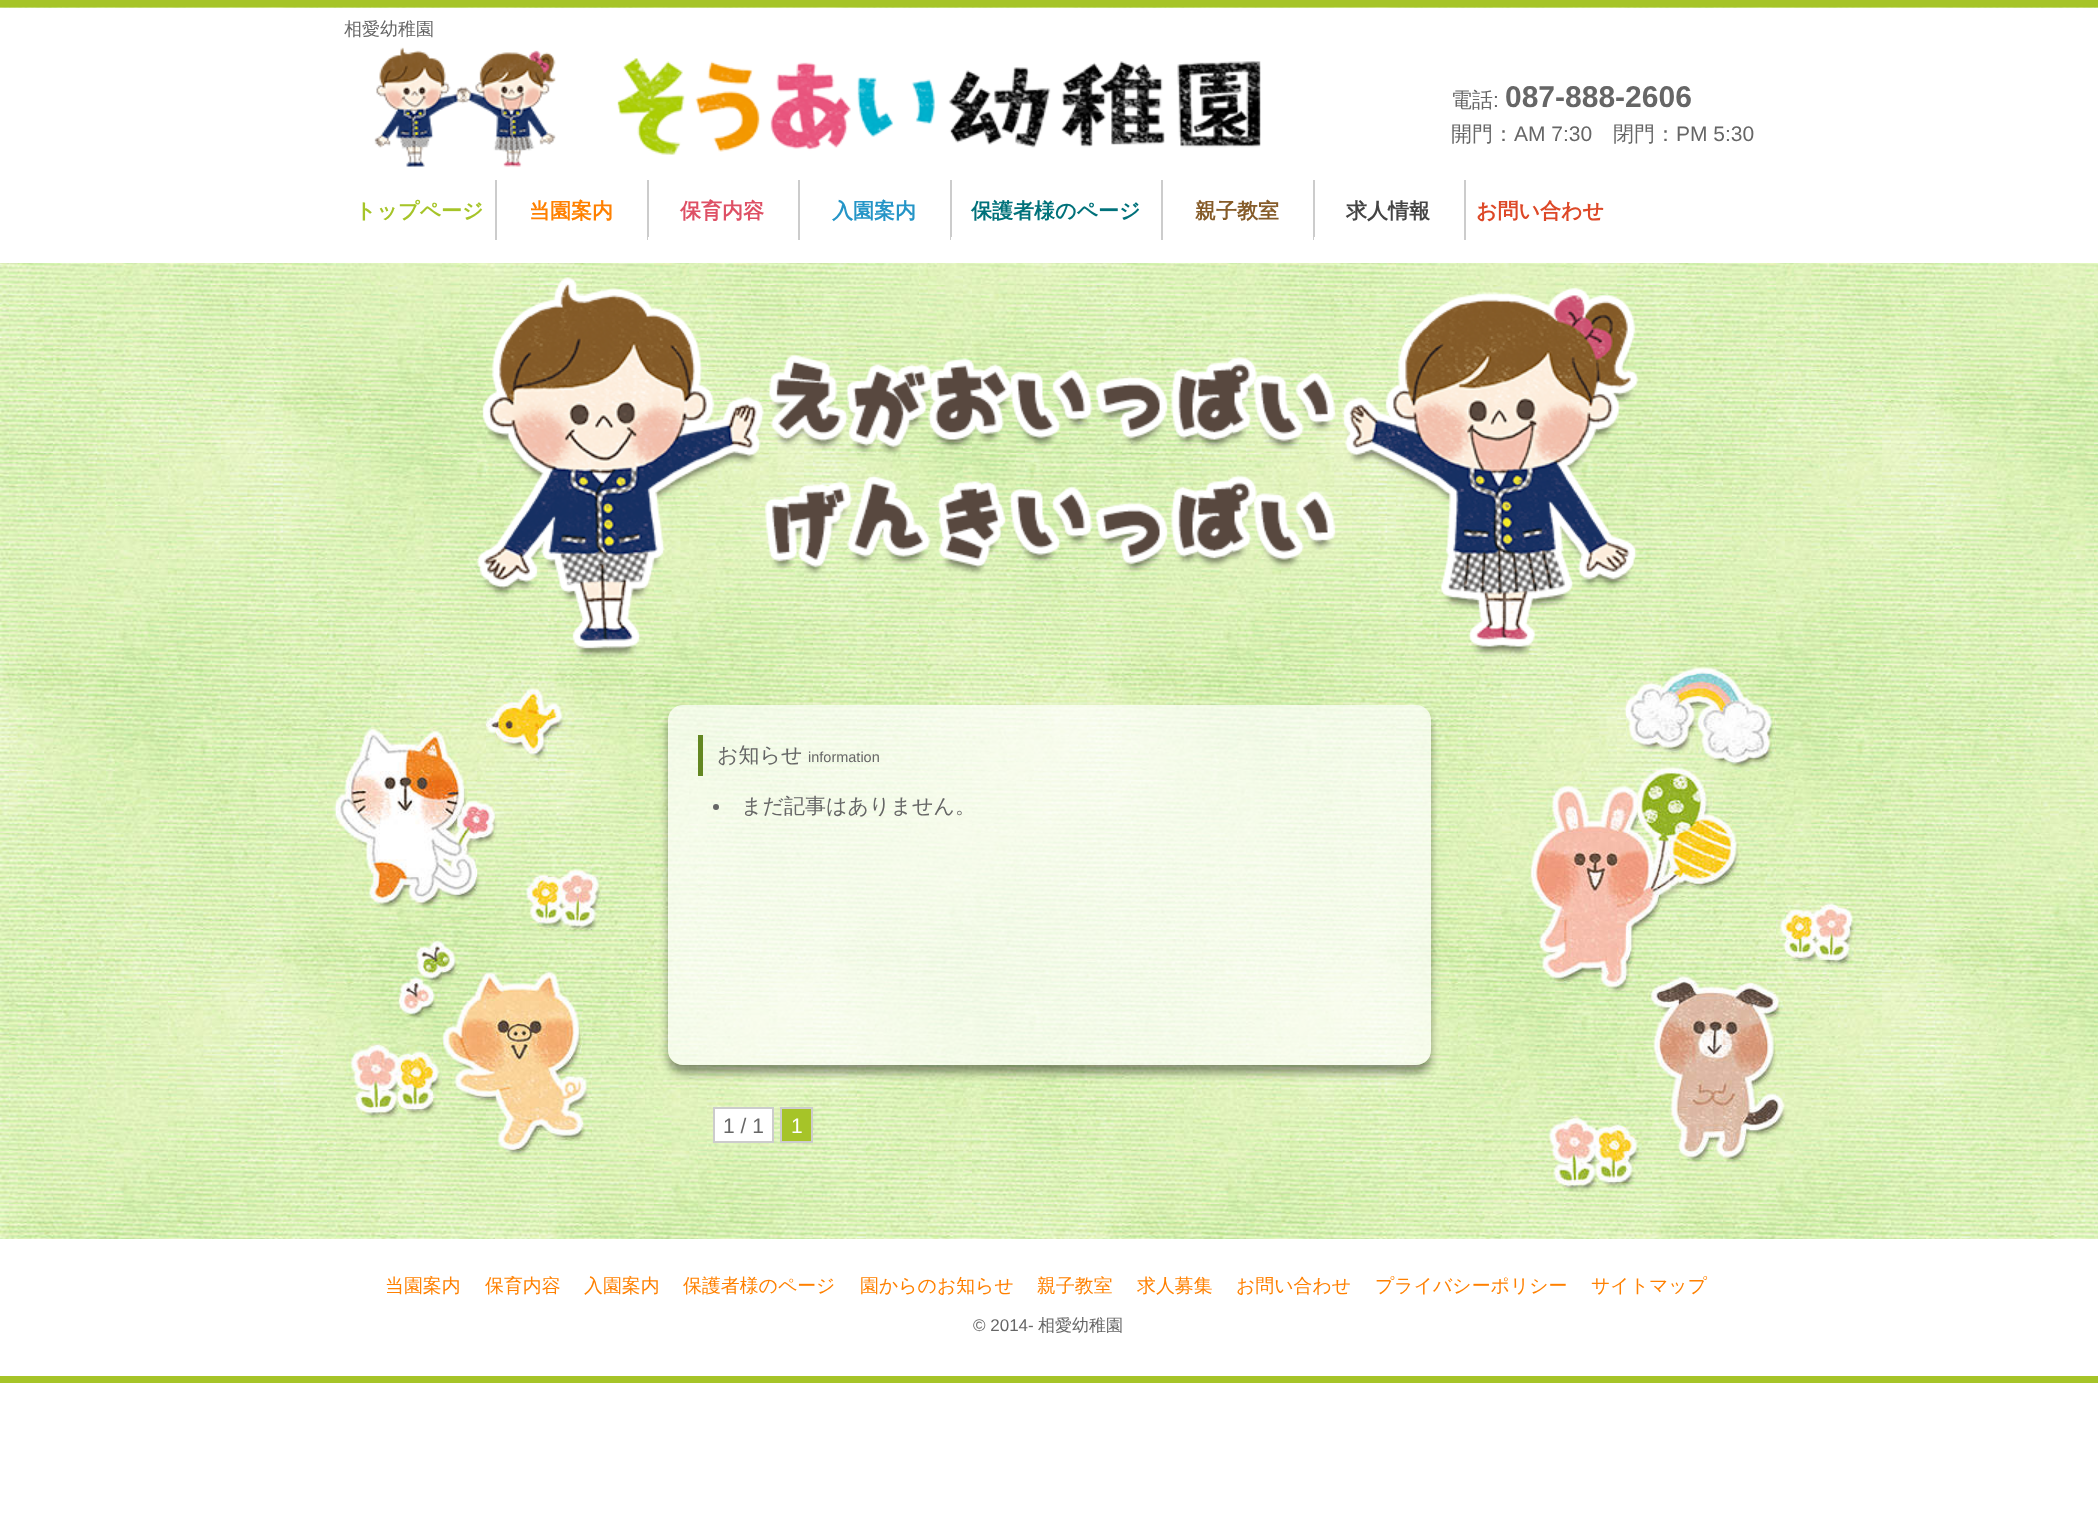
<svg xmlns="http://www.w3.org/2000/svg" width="2098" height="1521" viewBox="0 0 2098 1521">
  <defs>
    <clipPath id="clip1"><path d="M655 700H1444V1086H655ZM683 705H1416C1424.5 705 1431 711.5 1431 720V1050C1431 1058.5 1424.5 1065 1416 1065H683C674.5 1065 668 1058.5 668 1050V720C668 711.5 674.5 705 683 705Z" clip-rule="evenodd"/></clipPath>
  </defs>
  <rect width="100%" height="100%" fill="rgb(255,255,255)"/>
  <rect x="0" y="0" width="2098" height="8" fill="rgb(166,196,40)"/>
  <rect x="0" y="1376" width="2098" height="7" fill="rgb(166,196,40)"/>
  <image x="0" y="7" width="2098" height="1232" href="pic1.png"/>
  <rect x="0" y="8" width="2098" height="255" fill="rgb(255,255,255)"/>
  <text x="344" y="35" font-family="WenQuanYi Zen Hei" font-size="18" font-weight="500" fill="rgb(102,102,102)">相愛幼稚園</text>
  <image x="374" y="47" width="887" height="120" href="pic2.png"/>
  <text x="1451" y="107" font-family="WenQuanYi Zen Hei" font-size="21" font-weight="500" fill="rgb(102,102,102)">電話</text>
  <text x="1493" y="107" font-family="Liberation Sans" font-size="21" fill="rgb(102,102,102)">:</text>
  <text x="1505" y="107" font-family="Liberation Sans" font-size="30" font-weight="bold" fill="rgb(102,102,102)">087-888-2606</text>
  <text x="1451" y="141" font-family="WenQuanYi Zen Hei" font-size="21" font-weight="500" fill="rgb(102,102,102)">開門：</text>
  <text x="1514" y="141" font-family="Liberation Sans" font-size="21" fill="rgb(102,102,102)">AM 7:30</text>
  <text x="1613" y="141" font-family="WenQuanYi Zen Hei" font-size="21" font-weight="500" fill="rgb(102,102,102)">閉門：</text>
  <text x="1676" y="141" font-family="Liberation Sans" font-size="21" fill="rgb(102,102,102)">PM 5:30</text>
  <rect x="495" y="180" width="2" height="60" fill="rgb(204,204,204)"/>
  <text x="355" y="218" font-family="WenQuanYi Zen Hei" font-size="21" font-weight="bold" fill="rgb(166,196,40)">トップページ</text>
  <rect x="647" y="180" width="2" height="60" fill="rgb(204,204,204)"/>
  <text x="529" y="218" font-family="WenQuanYi Zen Hei" font-size="21" font-weight="bold" fill="rgb(255,128,0)">当園案内</text>
  <rect x="798" y="180" width="2" height="60" fill="rgb(204,204,204)"/>
  <rect x="648" y="237" width="1" height="3" fill="rgb(255,255,255)"/>
  <text x="680" y="218" font-family="WenQuanYi Zen Hei" font-size="21" font-weight="bold" fill="rgb(222,80,101)">保育内容</text>
  <rect x="950" y="180" width="2" height="60" fill="rgb(204,204,204)"/>
  <text x="832" y="218" font-family="WenQuanYi Zen Hei" font-size="21" font-weight="bold" fill="rgb(37,149,199)">入園案内</text>
  <rect x="1161" y="180" width="2" height="60" fill="rgb(204,204,204)"/>
  <rect x="951" y="237" width="1" height="3" fill="rgb(255,255,255)"/>
  <text x="971" y="218" font-family="WenQuanYi Zen Hei" font-size="21" font-weight="bold" fill="rgb(0,113,122)">保護者様のページ</text>
  <rect x="1313" y="180" width="2" height="60" fill="rgb(204,204,204)"/>
  <text x="1195" y="218" font-family="WenQuanYi Zen Hei" font-size="21" font-weight="bold" fill="rgb(133,91,40)">親子教室</text>
  <rect x="1464" y="180" width="2" height="60" fill="rgb(204,204,204)"/>
  <rect x="1314" y="237" width="1" height="3" fill="rgb(255,255,255)"/>
  <text x="1346" y="218" font-family="WenQuanYi Zen Hei" font-size="21" font-weight="bold" fill="rgb(68,68,68)">求人情報</text>
  <text x="1476" y="218" font-family="WenQuanYi Zen Hei" font-size="21" font-weight="bold" fill="rgb(221,72,39)">お問い合わせ</text>
  <image x="476" y="277" width="1163" height="381" href="pic3.png"/>
  <g clip-path="url(#clip1)">
    <rect x="668" y="713" width="763" height="360" rx="15" fill="rgba(0,0,0,0.4)" filter="blur(4px)"/>
  </g>
  <rect x="668" y="705" width="763" height="360" rx="15" fill="rgba(255,255,255,0.7)"/>
  <rect x="698" y="735" width="5" height="41" fill="rgb(99,135,33)"/>
  <text x="717" y="762" font-family="WenQuanYi Zen Hei" font-size="21" font-weight="500" fill="rgb(102,102,102)">お知らせ</text>
  <text x="808" y="762" font-family="Liberation Sans" font-size="14.5" fill="rgb(102,102,102)">information</text>
  <circle cx="716" cy="807" r="3" fill="rgb(102,102,102)"/>
  <text x="741" y="813" font-family="WenQuanYi Zen Hei" font-size="21" font-weight="500" fill="rgb(102,102,102)">まだ記事はありません。</text>
  <rect x="714" y="1108" width="59" height="34" fill="rgb(255,255,255)" stroke="rgb(204,204,204)" stroke-width="2"/>
  <text x="723" y="1133" font-family="Liberation Sans" font-size="21" fill="rgb(102,102,102)">1 / 1</text>
  <rect x="781" y="1108" width="31" height="34" fill="rgb(166,196,40)" stroke="rgb(204,204,204)" stroke-width="2"/>
  <text x="791" y="1133" font-family="Liberation Sans" font-size="21" fill="rgb(255,255,255)">1</text>
  <g font-family="WenQuanYi Zen Hei" font-size="18.9" font-weight="500" fill="rgb(255,128,0)">
    <text x="385" y="1292">当園案内</text>
    <text x="485" y="1292">保育内容</text>
    <text x="584" y="1292">入園案内</text>
    <text x="683" y="1292">保護者様のページ</text>
    <text x="860" y="1292">園からのお知らせ</text>
    <text x="1037" y="1292">親子教室</text>
    <text x="1137" y="1292">求人募集</text>
    <text x="1236" y="1292">お問い合わせ</text>
    <text x="1375" y="1292">プライバシーポリシー</text>
    <text x="1591" y="1292">サイトマップ</text>
  </g>
  <text x="973" y="1331" font-family="Liberation Sans" font-size="17" fill="rgb(102,102,102)">© 2014-</text>
  <text x="1038" y="1331" font-family="WenQuanYi Zen Hei" font-size="17" font-weight="500" fill="rgb(102,102,102)">相愛幼稚園</text>
</svg>
